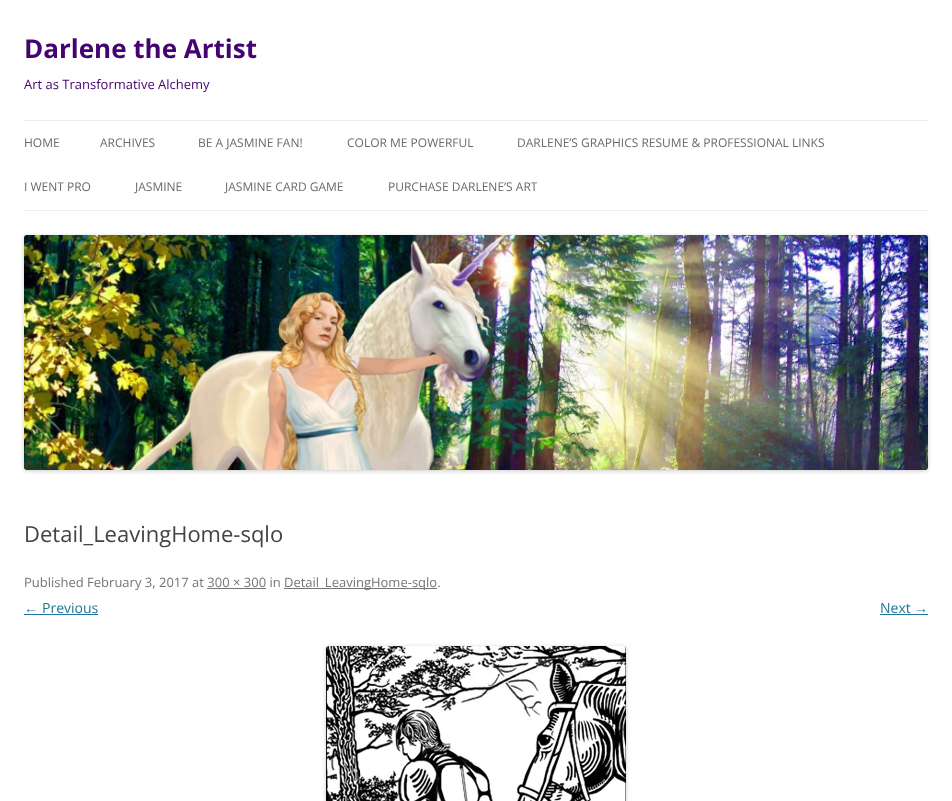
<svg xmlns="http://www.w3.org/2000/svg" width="952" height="801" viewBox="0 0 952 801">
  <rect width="100%" height="100%" fill="rgb(255,255,255)"/>
  <text x="24" y="58" font-family="Open Sans" font-size="26" font-weight="bold" fill="rgb(68,3,112)">Darlene the Artist</text>
  <text x="24" y="89" font-family="Open Sans" font-size="13" fill="rgb(68,3,112)">Art as Transformative Alchemy</text>
  <rect x="24" y="120" width="904" height="1" fill="rgb(237,237,237)"/>
  <rect x="24" y="210" width="904" height="1" fill="rgb(237,237,237)"/>
  <g font-family="Open Sans" font-size="12" fill="rgb(106,106,106)">
    <text x="24" y="147">HOME</text>
    <text x="100" y="147">ARCHIVES</text>
    <text x="198" y="147">BE A JASMINE FAN!</text>
    <text x="347" y="147">COLOR ME POWERFUL</text>
    <text x="517" y="147">DARLENE’S GRAPHICS RESUME &amp; PROFESSIONAL LINKS</text>
    <text x="24" y="191">I WENT PRO</text>
    <text x="135" y="191">JASMINE</text>
    <text x="225" y="191">JASMINE CARD GAME</text>
    <text x="388" y="191">PURCHASE DARLENE’S ART</text>
  </g>
  <rect x="24" y="236" width="904" height="235" rx="3" fill="rgba(0,0,0,0.2)" filter="blur(2px)"/>
  <image x="24" y="235" width="904" height="235" href="pic1.png"/>
  <text x="24" y="542" font-family="Open Sans" font-size="22" fill="rgb(68,68,68)">Detail_LeavingHome-sqlo</text>
  <text x="24" y="587" font-family="Open Sans" font-size="13" fill="rgb(117,117,117)">Published February 3, 2017 at 300 × 300 in</text>
  <rect x="284" y="588" width="153" height="1" fill="rgb(117,117,117)"/>
  <text x="284" y="587" font-family="Open Sans" font-size="13" fill="rgb(117,117,117)">Detail_LeavingHome-sqlo.</text>
  <rect x="207" y="588" width="59" height="1" fill="rgb(117,117,117)"/>
  <text x="24" y="613" font-family="Liberation Sans" font-size="14" fill="rgb(33,117,155)">←</text>
  <rect x="24" y="614" width="74" height="1" fill="rgb(33,117,155)"/>
  <g font-family="Open Sans" font-size="14" fill="rgb(33,117,155)">
    <text x="42" y="613">Previous</text>
    <text x="880" y="613">Next</text>
  </g>
  <text x="914" y="613" font-family="Liberation Sans" font-size="14" fill="rgb(33,117,155)">→</text>
  <rect x="880" y="614" width="48" height="1" fill="rgb(33,117,155)"/>
  <rect x="326" y="647" width="300" height="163" rx="3" fill="rgba(0,0,0,0.2)" filter="blur(2px)"/>
  <image x="326" y="646" width="300" height="155" href="pic2.png"/>
</svg>
